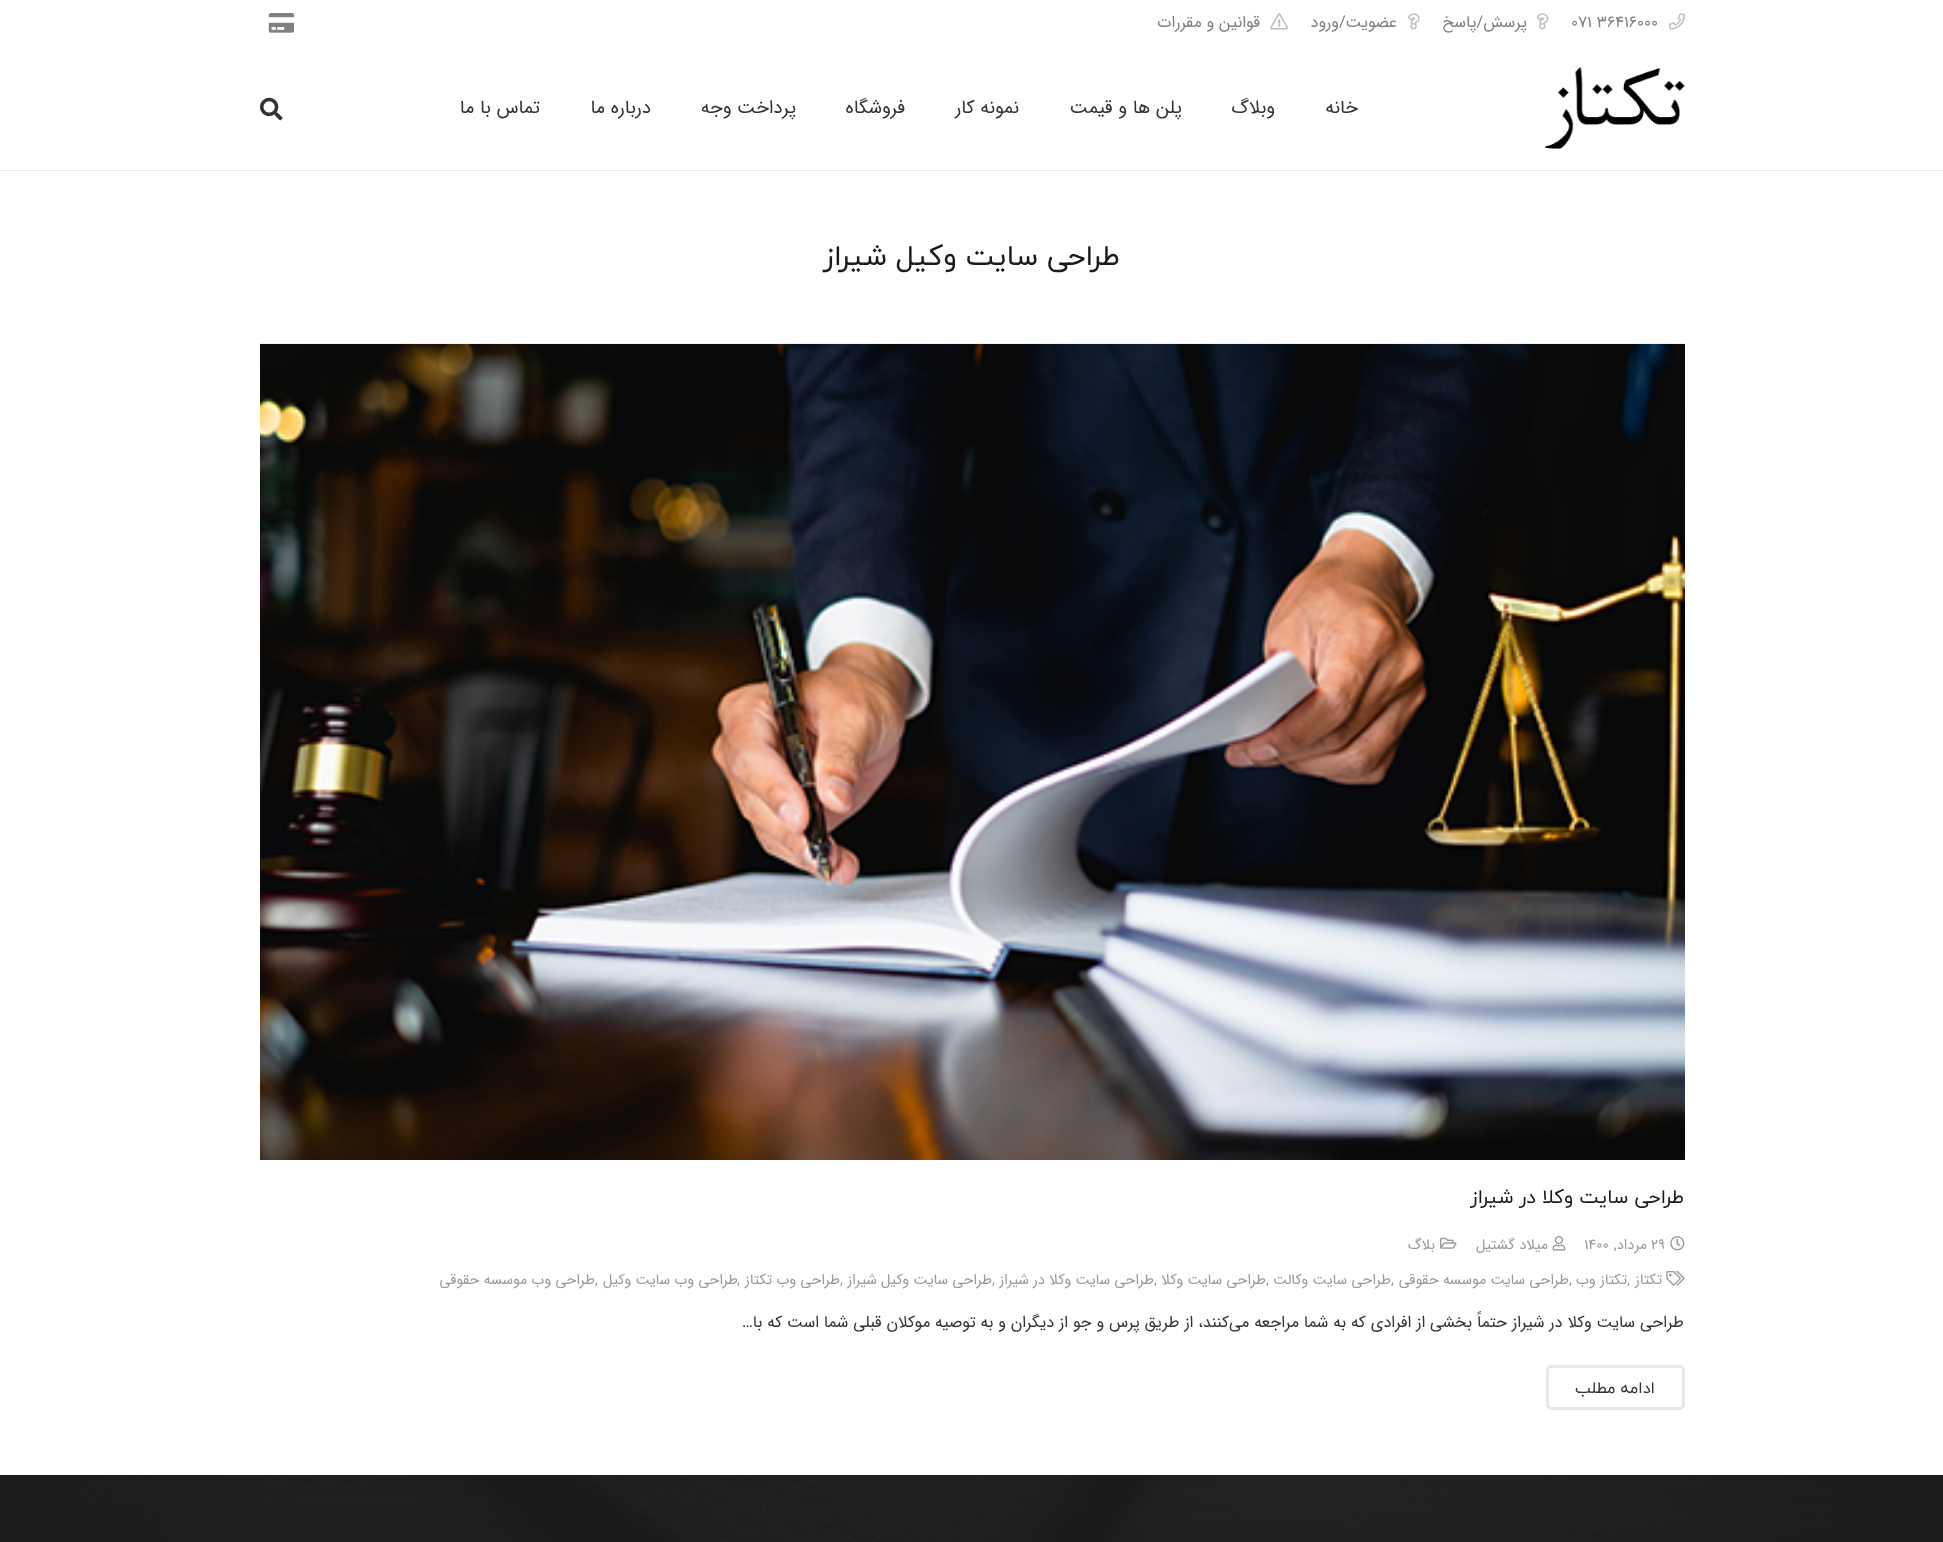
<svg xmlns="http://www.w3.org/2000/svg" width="1943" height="1542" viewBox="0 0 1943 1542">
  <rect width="100%" height="100%" fill="rgb(255,255,255)"/>
  <image x="1668" y="13" width="17" height="17" href="pic1.png"/>
  <text x="1571" y="27" font-family="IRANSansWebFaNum" font-size="16.25" fill="rgb(128,128,128)">071 36416000</text>
  <image x="1536" y="13" width="13" height="17" href="pic2.png"/>
  <text x="1527" y="27" font-family="IRANSansWebFaNum" font-size="16.25" direction="rtl" fill="rgb(128,128,128)">پرسش/پاسخ</text>
  <image x="1408" y="13" width="12" height="17" href="pic3.png"/>
  <text x="1397" y="27" font-family="IRANSansWebFaNum" font-size="16.25" direction="rtl" fill="rgb(128,128,128)">عضویت/ورود</text>
  <image x="1270" y="13" width="19" height="17" href="pic4.png"/>
  <text x="1260" y="27" font-family="IRANSansWebFaNum" font-size="16.25" direction="rtl" fill="rgb(128,128,128)">قوانین و مقررات</text>
  <image x="268" y="13" width="27" height="20" href="pic5.png"/>
  <path d="M0 170V171H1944V46V170Z" fill="rgb(235,235,235)"/>
  <image x="1545" y="67" width="140" height="82" href="pic6.png"/>
  <g font-family="IRANSansWebFaNum" font-size="18.75" direction="rtl" fill="rgb(51,51,51)">
    <text x="1358" y="113">خانه</text>
    <text x="1275" y="113">وبلاگ</text>
    <text x="1182" y="113">پلن ها و قیمت</text>
    <text x="1019" y="113">نمونه کار</text>
    <text x="905" y="113">فروشگاه</text>
    <text x="796" y="113">پرداخت وجه</text>
    <text x="651" y="113">درباره ما</text>
    <text x="540" y="113">تماس با ما</text>
  </g>
  <image x="260" y="97" width="23" height="24" href="pic7.png"/>
  <text x="1120" y="265" font-family="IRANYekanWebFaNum" font-size="28.75" direction="rtl" fill="rgb(26,26,26)">طراحی سایت وکیل شیراز</text>
  <image x="260" y="343" width="1425" height="817" href="pic8.png"/>
  <text x="1684" y="1203" font-family="IRANYekanWebFaNum" font-size="19.5" direction="rtl" fill="rgb(26,26,26)">طراحی سایت وکلا در شیراز</text>
  <image x="1670" y="1236" width="15" height="15" href="pic9.png"/>
  <text x="1651" y="1249" font-family="IRANSansWebFaNum" font-size="14.6" fill="rgb(153,153,153)">۲۹</text>
  <text x="1647" y="1249" font-family="IRANSansWebFaNum" font-size="14.6" direction="rtl" fill="rgb(153,153,153)">مرداد,</text>
  <text x="1584" y="1249" font-family="IRANSansWebFaNum" font-size="14.6" fill="rgb(153,153,153)">۱۴۰۰</text>
  <image x="1552" y="1236" width="14" height="15" href="pic10.png"/>
  <text x="1548" y="1249" font-family="IRANSansWebFaNum" font-size="14.6" direction="rtl" fill="rgb(153,153,153)">میلاد گشتیل</text>
  <image x="1440" y="1237" width="17" height="12" href="pic11.png"/>
  <text x="1435" y="1249" font-family="IRANSansWebFaNum" font-size="14.6" direction="rtl" fill="rgb(153,153,153)">بلاگ</text>
  <image x="1666" y="1270" width="19" height="16" href="pic12.png"/>
  <text x="1662" y="1284" font-family="IRANSansWebFaNum" font-size="14.6" direction="rtl" fill="rgb(153,153,153)">تکتاز</text>
  <text x="1627" y="1284" font-family="IRANSansWebFaNum" font-size="14.6" fill="rgb(153,153,153)">,</text>
  <text x="1627" y="1284" font-family="IRANSansWebFaNum" font-size="14.6" direction="rtl" fill="rgb(153,153,153)">تکتاز وب</text>
  <text x="1569" y="1284" font-family="IRANSansWebFaNum" font-size="14.6" fill="rgb(153,153,153)">,</text>
  <text x="1569" y="1284" font-family="IRANSansWebFaNum" font-size="14.6" direction="rtl" fill="rgb(153,153,153)">طراحی سایت موسسه حقوقی</text>
  <text x="1391" y="1284" font-family="IRANSansWebFaNum" font-size="14.6" fill="rgb(153,153,153)">,</text>
  <text x="1391" y="1284" font-family="IRANSansWebFaNum" font-size="14.6" direction="rtl" fill="rgb(153,153,153)">طراحی سایت وکالت</text>
  <text x="1266" y="1284" font-family="IRANSansWebFaNum" font-size="14.6" fill="rgb(153,153,153)">,</text>
  <text x="1266" y="1284" font-family="IRANSansWebFaNum" font-size="14.6" direction="rtl" fill="rgb(153,153,153)">طراحی سایت وکلا</text>
  <text x="1154" y="1284" font-family="IRANSansWebFaNum" font-size="14.6" fill="rgb(153,153,153)">,</text>
  <text x="1154" y="1284" font-family="IRANSansWebFaNum" font-size="14.6" direction="rtl" fill="rgb(153,153,153)">طراحی سایت وکلا در شیراز</text>
  <text x="992" y="1284" font-family="IRANSansWebFaNum" font-size="14.6" fill="rgb(153,153,153)">,</text>
  <text x="992" y="1284" font-family="IRANSansWebFaNum" font-size="14.6" direction="rtl" fill="rgb(153,153,153)">طراحی سایت وکیل شیراز</text>
  <text x="840" y="1284" font-family="IRANSansWebFaNum" font-size="14.6" fill="rgb(153,153,153)">,</text>
  <text x="840" y="1284" font-family="IRANSansWebFaNum" font-size="14.6" direction="rtl" fill="rgb(153,153,153)">طراحی وب تکتاز</text>
  <text x="737" y="1284" font-family="IRANSansWebFaNum" font-size="14.6" fill="rgb(153,153,153)">,</text>
  <text x="738" y="1284" font-family="IRANSansWebFaNum" font-size="14.6" direction="rtl" fill="rgb(153,153,153)">طراحی وب سایت وکیل</text>
  <text x="595" y="1284" font-family="IRANSansWebFaNum" font-size="14.6" fill="rgb(153,153,153)">,</text>
  <text x="595" y="1284" font-family="IRANSansWebFaNum" font-size="14.6" direction="rtl" fill="rgb(153,153,153)">طراحی وب موسسه حقوقی</text>
  <text x="1684" y="1327" font-family="IRANSansWebFaNum" font-size="16.25" direction="rtl" fill="rgb(51,51,51)">طراحی سایت وکلا در شیراز حتماً بخشی از افرادی که به شما مراجعه می‌کنند، از طریق پرس و جو از دیگران و به توصیه موکلان قبلی شما است که با…</text>
  <rect x="1547.5" y="1366.5" width="136" height="42" rx="3.5" fill="none" stroke="rgb(232,232,232)" stroke-width="3"/>
  <text x="1655" y="1393" font-family="IRANYekanWebFaNum" font-size="16.25" direction="rtl" fill="rgb(51,51,51)">ادامه مطلب</text>
  <image x="0" y="1475" width="1943" height="67" href="pic13.png"/>
</svg>
